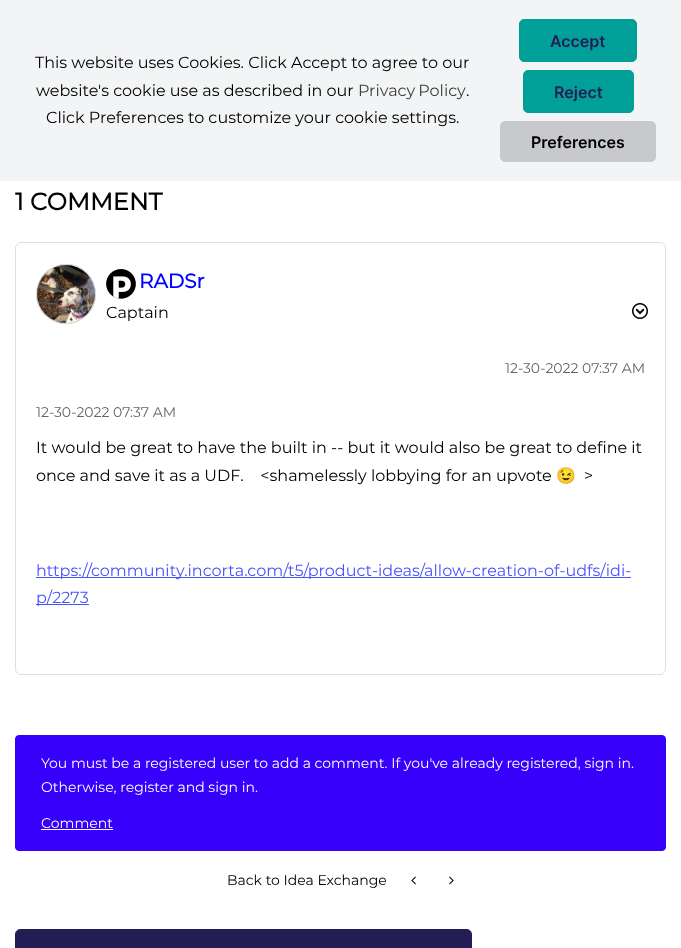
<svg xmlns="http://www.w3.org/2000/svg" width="681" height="948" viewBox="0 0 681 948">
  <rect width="100%" height="100%" fill="rgb(255,255,255)"/>
  <rect x="0" y="0" width="681" height="181" fill="rgb(243,244,245)"/>
  <g font-family="Montserrat" font-size="16" fill="rgb(0,0,0)">
    <text x="35" y="68">This website uses Cookies. Click Accept to agree to our</text>
    <text x="36" y="96">website's cookie use as described in our</text>
  </g>
  <text x="358" y="96" word-spacing="-1" font-family="Montserrat" font-size="16" fill="rgb(62,62,62)">Privacy Policy</text>
  <g font-family="Montserrat" font-size="16" fill="rgb(0,0,0)">
    <text x="466" y="96">.</text>
    <text x="46" y="123">Click Preferences to customize your cookie settings.</text>
  </g>
  <rect x="519.5" y="19.5" width="117" height="42" rx="4.5" fill="rgb(0,160,152)" stroke="rgb(0,160,152)"/>
  <text x="550" y="47" font-family="Inter" font-size="16" font-weight="600" fill="rgb(36,28,85)">Accept</text>
  <rect x="523.5" y="70.5" width="110" height="42" rx="4.5" fill="rgb(0,160,152)" stroke="rgb(0,160,152)"/>
  <text x="554" y="98" font-family="Inter" font-size="16" font-weight="600" fill="rgb(36,28,85)">Reject</text>
  <rect x="500.5" y="121.5" width="155" height="40" rx="4.5" fill="rgb(200,201,204)" stroke="rgb(200,201,204)"/>
  <text x="531" y="148" font-family="Inter" font-size="16" font-weight="600" fill="rgb(0,0,0)">Preferences</text>
  <text x="15" y="210" font-family="Montserrat" font-size="24" font-weight="bold" fill="rgb(0,0,0)">1 COMMENT</text>
  <rect x="15.5" y="242.5" width="650" height="432" rx="5.5" fill="none" stroke="rgb(220,222,224)"/>
  <rect x="36" y="264" width="60" height="60" rx="30" fill="rgb(196,196,196)" filter="blur(0.5px)"/>
  <circle cx="66" cy="294" r="29.5" fill="none" stroke="rgb(220,222,224)"/>
  <image x="37" y="265" width="58" height="58" href="pic1.png"/>
  <image x="106" y="269" width="30" height="30" href="pic2.png"/>
  <text x="139" y="288" font-family="Montserrat" font-size="20" font-weight="bold" fill="rgb(0,0,255)">RADSr</text>
  <text x="106" y="318" font-family="Montserrat" font-size="16" fill="rgb(0,0,0)">Captain</text>
  <image x="632" y="303" width="16" height="16" href="pic3.png"/>
  <g font-family="Montserrat" font-size="14" fill="rgb(101,101,102)">
    <text x="505" y="373">12-30-2022</text>
    <text x="582" y="373">07:37 AM</text>
    <text x="36" y="417">12-30-2022</text>
    <text x="113" y="417">07:37 AM</text>
  </g>
  <g font-family="Montserrat" font-size="16" fill="rgb(0,0,0)">
    <text xml:space="preserve"><tspan x="36" y="453">It would be great to have the built in -- but it would also be great to define it</tspan><tspan x="36" y="481">once and save it as a UDF.    &lt;shamelessly lobbying for an upvote</tspan></text>
  </g>
  <text x="556" y="481" font-family="Noto Color Emoji" font-size="16" fill="rgb(0,0,0)">😉</text>
  <text x="584" y="481" font-family="Montserrat" font-size="16" fill="rgb(0,0,0)">&gt;</text>
  <rect x="36" y="577" width="595" height="1" fill="rgb(72,84,254)"/>
  <text x="36" y="576" font-family="Montserrat" font-size="16" fill="rgb(72,84,254)">https://community.incorta.com/t5/product-ideas/allow-creation-of-udfs/idi-</text>
  <rect x="36" y="604" width="53" height="1" fill="rgb(72,84,254)"/>
  <text x="36" y="603" font-family="Montserrat" font-size="16" fill="rgb(72,84,254)">p/2273</text>
  <rect x="15.5" y="735.5" width="650" height="115" rx="3.5" fill="rgb(54,0,250)" stroke="rgb(54,0,250)"/>
  <g font-family="Montserrat" font-size="14" fill="rgb(255,255,255)">
    <text>
      <tspan x="41" y="768">You must be a registered user to add a comment. If you've already registered, sign in.</tspan>
      <tspan x="41" y="792">Otherwise, register and sign in.</tspan>
    </text>
    <text x="41" y="828">Comment</text>
  </g>
  <rect x="41" y="829" width="72" height="1" fill="rgb(255,255,255)"/>
  <text x="227" y="885" font-family="Montserrat" font-size="14" fill="rgb(0,0,0)">Back to Idea Exchange</text>
  <image x="411" y="876" width="5" height="9" href="pic4.png"/>
  <image x="449" y="876" width="5" height="9" href="pic5.png"/>
  <rect x="15.5" y="929.5" width="456" height="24" rx="4.5" fill="none" stroke="rgb(36,28,85)"/>
  <path d="M19 930H468C469.5 930 471 931.5 471 933V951H16V933C16 931.5 17.5 930 19 930Z" fill="rgb(36,28,85)"/>
</svg>
